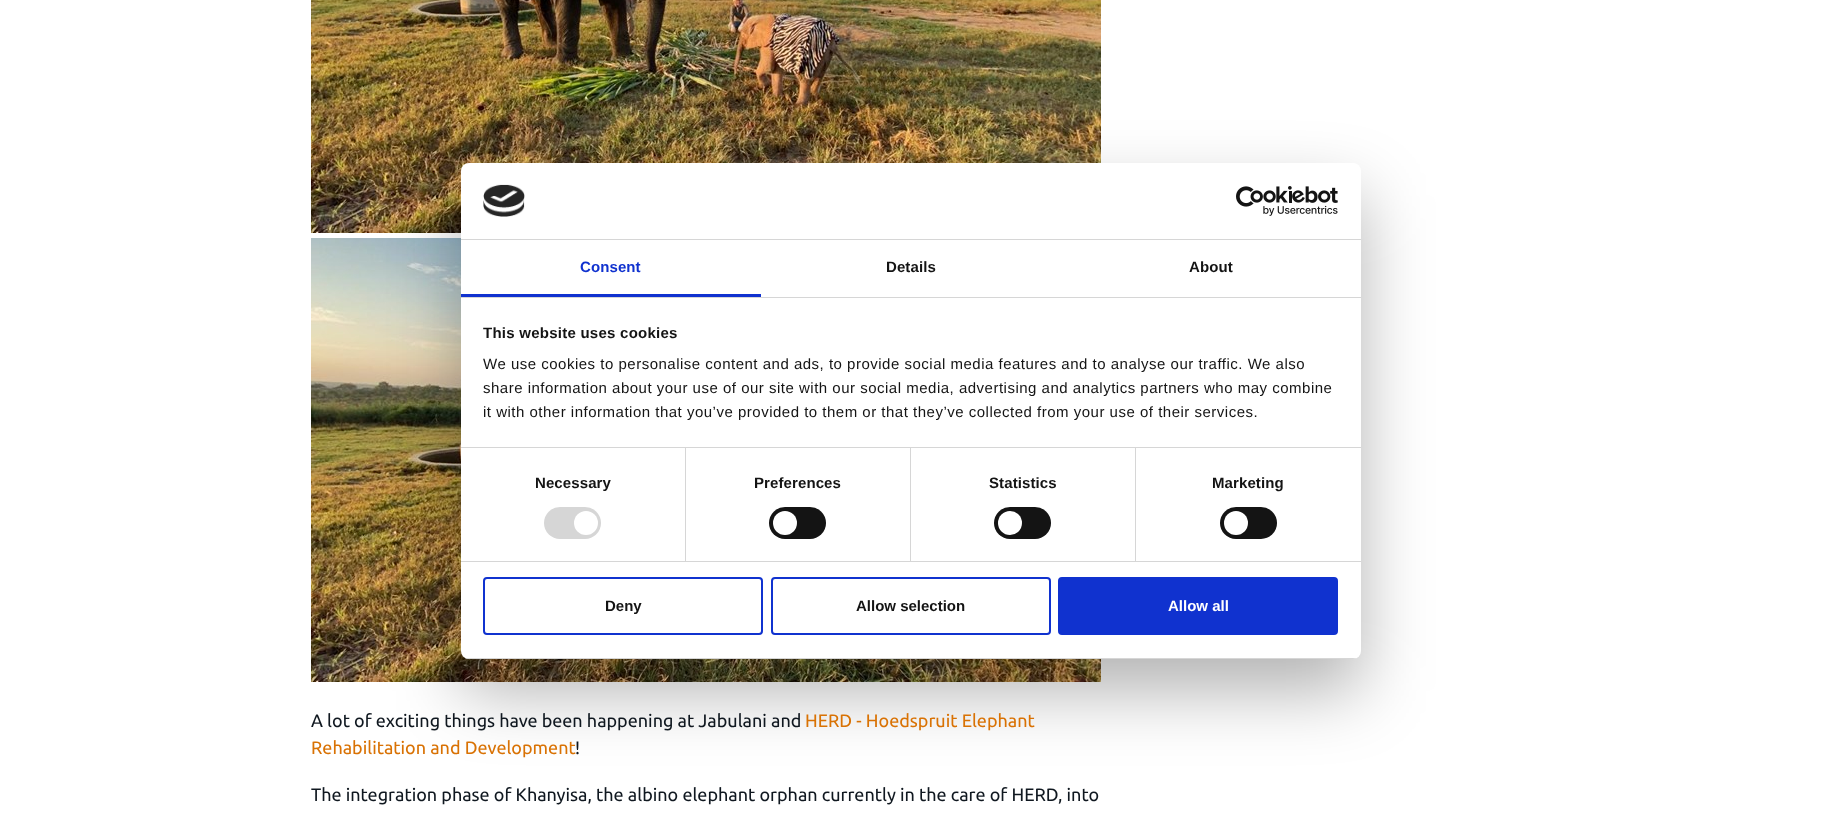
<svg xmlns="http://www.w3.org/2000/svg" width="1821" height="821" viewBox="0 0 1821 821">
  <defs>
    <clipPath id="clip1"><rect x="461" y="163" width="900" height="496" rx="8"/></clipPath>
  </defs>
  <rect width="100%" height="100%" fill="rgb(255,255,255)"/>
  <image x="311" y="0" width="790" height="233" href="pic3.png"/>
  <image x="311" y="238" width="790" height="444" href="pic4.png"/>
  <rect x="461" y="195" width="900" height="496" rx="8" fill="rgba(0,0,0,0.3)" filter="blur(34px)"/>
  <rect x="461" y="163" width="900" height="496" rx="8" fill="rgb(255,255,255)"/>
  <rect x="461" y="239" width="900" height="1" fill="rgb(214,214,214)"/>
  <image x="483" y="184" width="42" height="33" href="pic1.png"/>
  <image x="1236" y="186" width="102" height="30" href="pic2.png"/>
  <rect x="461" y="297" width="900" height="1" fill="rgb(214,214,214)"/>
  <rect x="461" y="294" width="300" height="3" fill="rgb(16,50,207)"/>
  <text x="580" y="272" font-family="Liberation Sans" font-size="15" font-weight="bold" letter-spacing="0.1" fill="rgb(16,50,207)">Consent</text>
  <g font-family="Liberation Sans" font-size="15" font-weight="bold" letter-spacing="0.1" fill="rgb(20,20,20)">
    <text x="886" y="272">Details</text>
    <text x="1189" y="272">About</text>
  </g>
  <rect x="461" y="447" width="900" height="1" fill="rgb(214,214,214)"/>
  <text x="483" y="338" font-family="Liberation Sans" font-size="15" font-weight="bold" letter-spacing="0.25" fill="rgb(20,20,20)">This website uses cookies</text>
  <g font-family="Liberation Sans" font-size="15" letter-spacing="0.5" fill="rgb(20,20,20)">
    <text>
      <tspan x="483" y="369">We use cookies to personalise content and ads, to provide social media features and to analyse our traffic. We also</tspan>
      <tspan x="483" y="393">share information about your use of our site with our social media, advertising and analytics partners who may combine</tspan>
      <tspan x="483" y="417">it with other information that you’ve provided to them or that they’ve collected from your use of their services.</tspan>
    </text>
  </g>
  <rect x="461" y="561" width="900" height="1" fill="rgb(214,214,214)"/>
  <rect x="685" y="448" width="1" height="113" fill="rgb(214,214,214)"/>
  <text x="535" y="488" font-family="Liberation Sans" font-size="15" font-weight="bold" letter-spacing="0.1" fill="rgb(20,20,20)">Necessary</text>
  <rect x="544" y="507" width="57" height="32" rx="16" fill="rgb(214,214,214)"/>
  <circle cx="586" cy="523" r="12" fill="rgb(255,255,255)"/>
  <rect x="910" y="448" width="1" height="113" fill="rgb(214,214,214)"/>
  <text x="754" y="488" font-family="Liberation Sans" font-size="15" font-weight="bold" letter-spacing="0.1" fill="rgb(20,20,20)">Preferences</text>
  <rect x="769" y="507" width="57" height="32" rx="16" fill="rgb(20,20,20)"/>
  <circle cx="785" cy="523" r="12" fill="rgb(255,255,255)"/>
  <rect x="1135" y="448" width="1" height="113" fill="rgb(214,214,214)"/>
  <text x="989" y="488" font-family="Liberation Sans" font-size="15" font-weight="bold" letter-spacing="0.1" fill="rgb(20,20,20)">Statistics</text>
  <rect x="994" y="507" width="57" height="32" rx="16" fill="rgb(20,20,20)"/>
  <circle cx="1010" cy="523" r="12" fill="rgb(255,255,255)"/>
  <text x="1212" y="488" font-family="Liberation Sans" font-size="15" font-weight="bold" letter-spacing="0.1" fill="rgb(20,20,20)">Marketing</text>
  <rect x="1220" y="507" width="57" height="32" rx="16" fill="rgb(20,20,20)"/>
  <circle cx="1236" cy="523" r="12" fill="rgb(255,255,255)"/>
  <g clip-path="url(#clip1)">
    <rect x="461" y="658" width="900" height="1" fill="rgb(214,214,214)"/>
  </g>
  <rect x="484" y="578" width="278" height="56" rx="3" fill="none" stroke="rgb(16,50,207)" stroke-width="2"/>
  <text x="605" y="611" font-family="Liberation Sans" font-size="15" font-weight="bold" fill="rgb(20,20,20)">Deny</text>
  <rect x="772" y="578" width="278" height="56" rx="3" fill="none" stroke="rgb(16,50,207)" stroke-width="2"/>
  <text x="856" y="611" font-family="Liberation Sans" font-size="15" font-weight="bold" fill="rgb(20,20,20)">Allow selection</text>
  <rect x="1059" y="578" width="278" height="56" rx="3" fill="rgb(16,50,207)" stroke="rgb(16,50,207)" stroke-width="2"/>
  <text x="1168" y="611" font-family="Liberation Sans" font-size="15" font-weight="bold" fill="rgb(255,255,255)">Allow all</text>
  <text x="311" y="727" font-family="Ubuntu" font-size="18" fill="rgb(16,24,32)">A lot of exciting things have been happening at Jabulani and</text>
  <g font-family="Ubuntu" font-size="18" fill="rgb(217,114,4)">
    <text x="805" y="727">HERD - Hoedspruit Elephant</text>
    <text x="311" y="754">Rehabilitation and Development</text>
  </g>
  <g font-family="Ubuntu" font-size="18" fill="rgb(16,24,32)">
    <text x="575" y="754">!</text>
    <text x="311" y="801">The integration phase of Khanyisa, the albino elephant orphan currently in the care of HERD, into</text>
  </g>
</svg>
